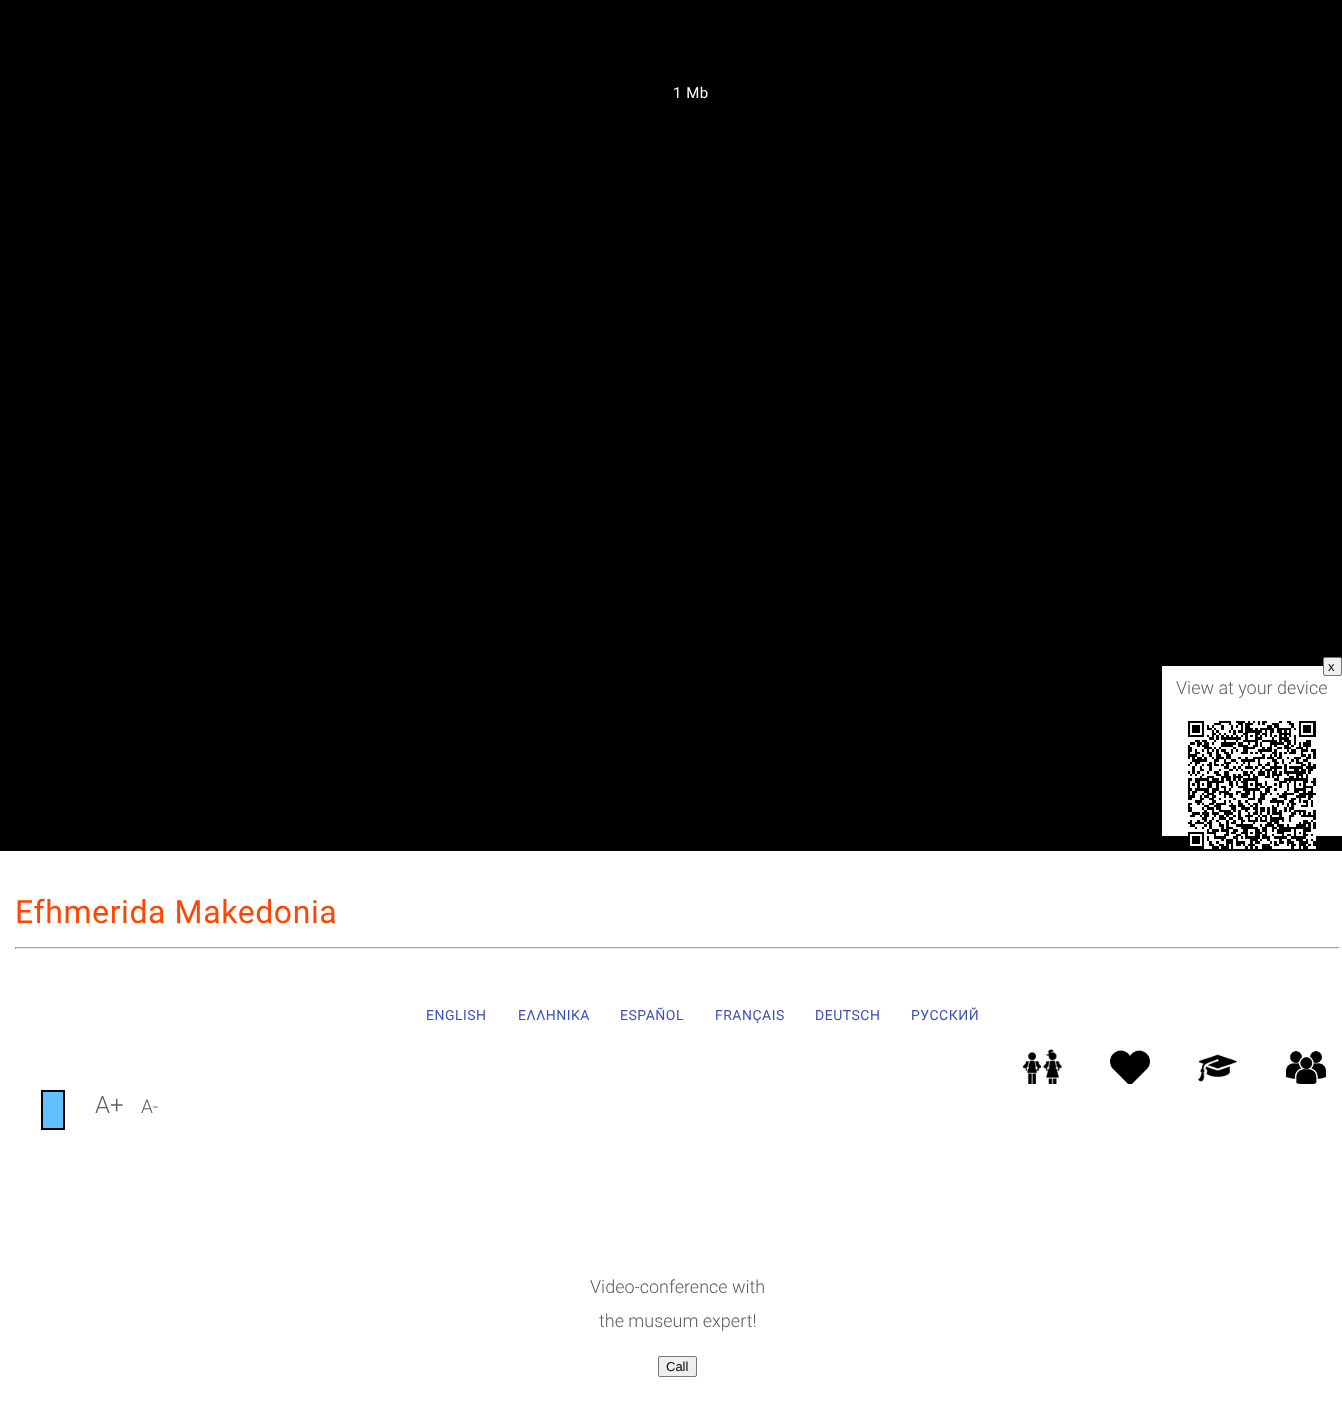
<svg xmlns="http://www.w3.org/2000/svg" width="1342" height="1419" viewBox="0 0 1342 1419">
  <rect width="100%" height="100%" fill="rgb(0,0,0)"/>
  <text x="673" y="98" font-family="Roboto" font-size="15" letter-spacing="0.5" fill="rgb(255,255,255)">1 Mb</text>
  <rect x="1162" y="666" width="180" height="170" fill="rgb(255,255,255)"/>
  <rect x="1323.5" y="657.5" width="18" height="18" rx="1.5" fill="rgb(239,239,239)" stroke="rgb(118,118,118)"/>
  <text x="1328" y="671" font-family="Liberation Sans" font-size="13" fill="rgb(0,0,0)">x</text>
  <text x="1176" y="694" font-family="Roboto" font-size="18" font-weight="300" fill="rgb(92,92,92)">View at your device</text>
  <image x="1188" y="721" width="128" height="128" href="pic1.png"/>
  <rect x="0" y="851" width="1342" height="568" fill="rgb(255,255,255)"/>
  <text x="15" y="923" font-family="Roboto" font-size="32" letter-spacing="0.6" fill="rgb(255,69,0)">Efhmerida Makedonia</text>
  <rect x="15" y="947" width="1325" height="1" fill="rgb(159,159,159)"/>
  <rect x="1339" y="947" width="1" height="2" fill="rgb(238,238,238)"/>
  <rect x="15" y="948" width="1325" height="1" fill="rgb(238,238,238)"/>
  <rect x="15" y="947" width="1" height="2" fill="rgb(159,159,159)"/>
  <g font-family="Roboto" font-size="14" letter-spacing="0.5" fill="rgb(63,81,181)">
    <text x="426" y="1020">ENGLISH</text>
    <text x="518" y="1020">ΕΛΛΗΝΙΚΑ</text>
    <text x="620" y="1020">ESPAÑOL</text>
    <text x="715" y="1020">FRANÇAIS</text>
    <text x="815" y="1020">DEUTSCH</text>
    <text x="911" y="1020">PУССКИЙ</text>
  </g>
  <image x="1022" y="1049" width="40" height="35" href="pic2.png"/>
  <image x="1110" y="1050" width="40" height="34" href="pic3.png"/>
  <image x="1198" y="1054" width="39" height="28" href="pic4.png"/>
  <image x="1286" y="1051" width="40" height="33" href="pic5.png"/>
  <rect x="42" y="1091" width="22" height="38" fill="rgb(98,191,255)" stroke="rgb(0,0,0)" stroke-width="2"/>
  <text x="95" y="1113" font-family="Roboto" font-size="24" font-weight="300" fill="rgb(92,92,92)">A+</text>
  <text x="141" y="1113" font-family="Roboto" font-size="19" font-weight="300" fill="rgb(92,92,92)">A-</text>
  <g font-family="Roboto" font-size="18" font-weight="300" fill="rgb(92,92,92)">
    <text x="590" y="1293">Video-conference with</text>
    <text x="599" y="1327">the museum expert!</text>
  </g>
  <rect x="658.5" y="1356.5" width="38" height="20" rx="1.5" fill="rgb(239,239,239)" stroke="rgb(118,118,118)"/>
  <text x="666" y="1371" font-family="Liberation Sans" font-size="13" fill="rgb(0,0,0)">Call</text>
</svg>
